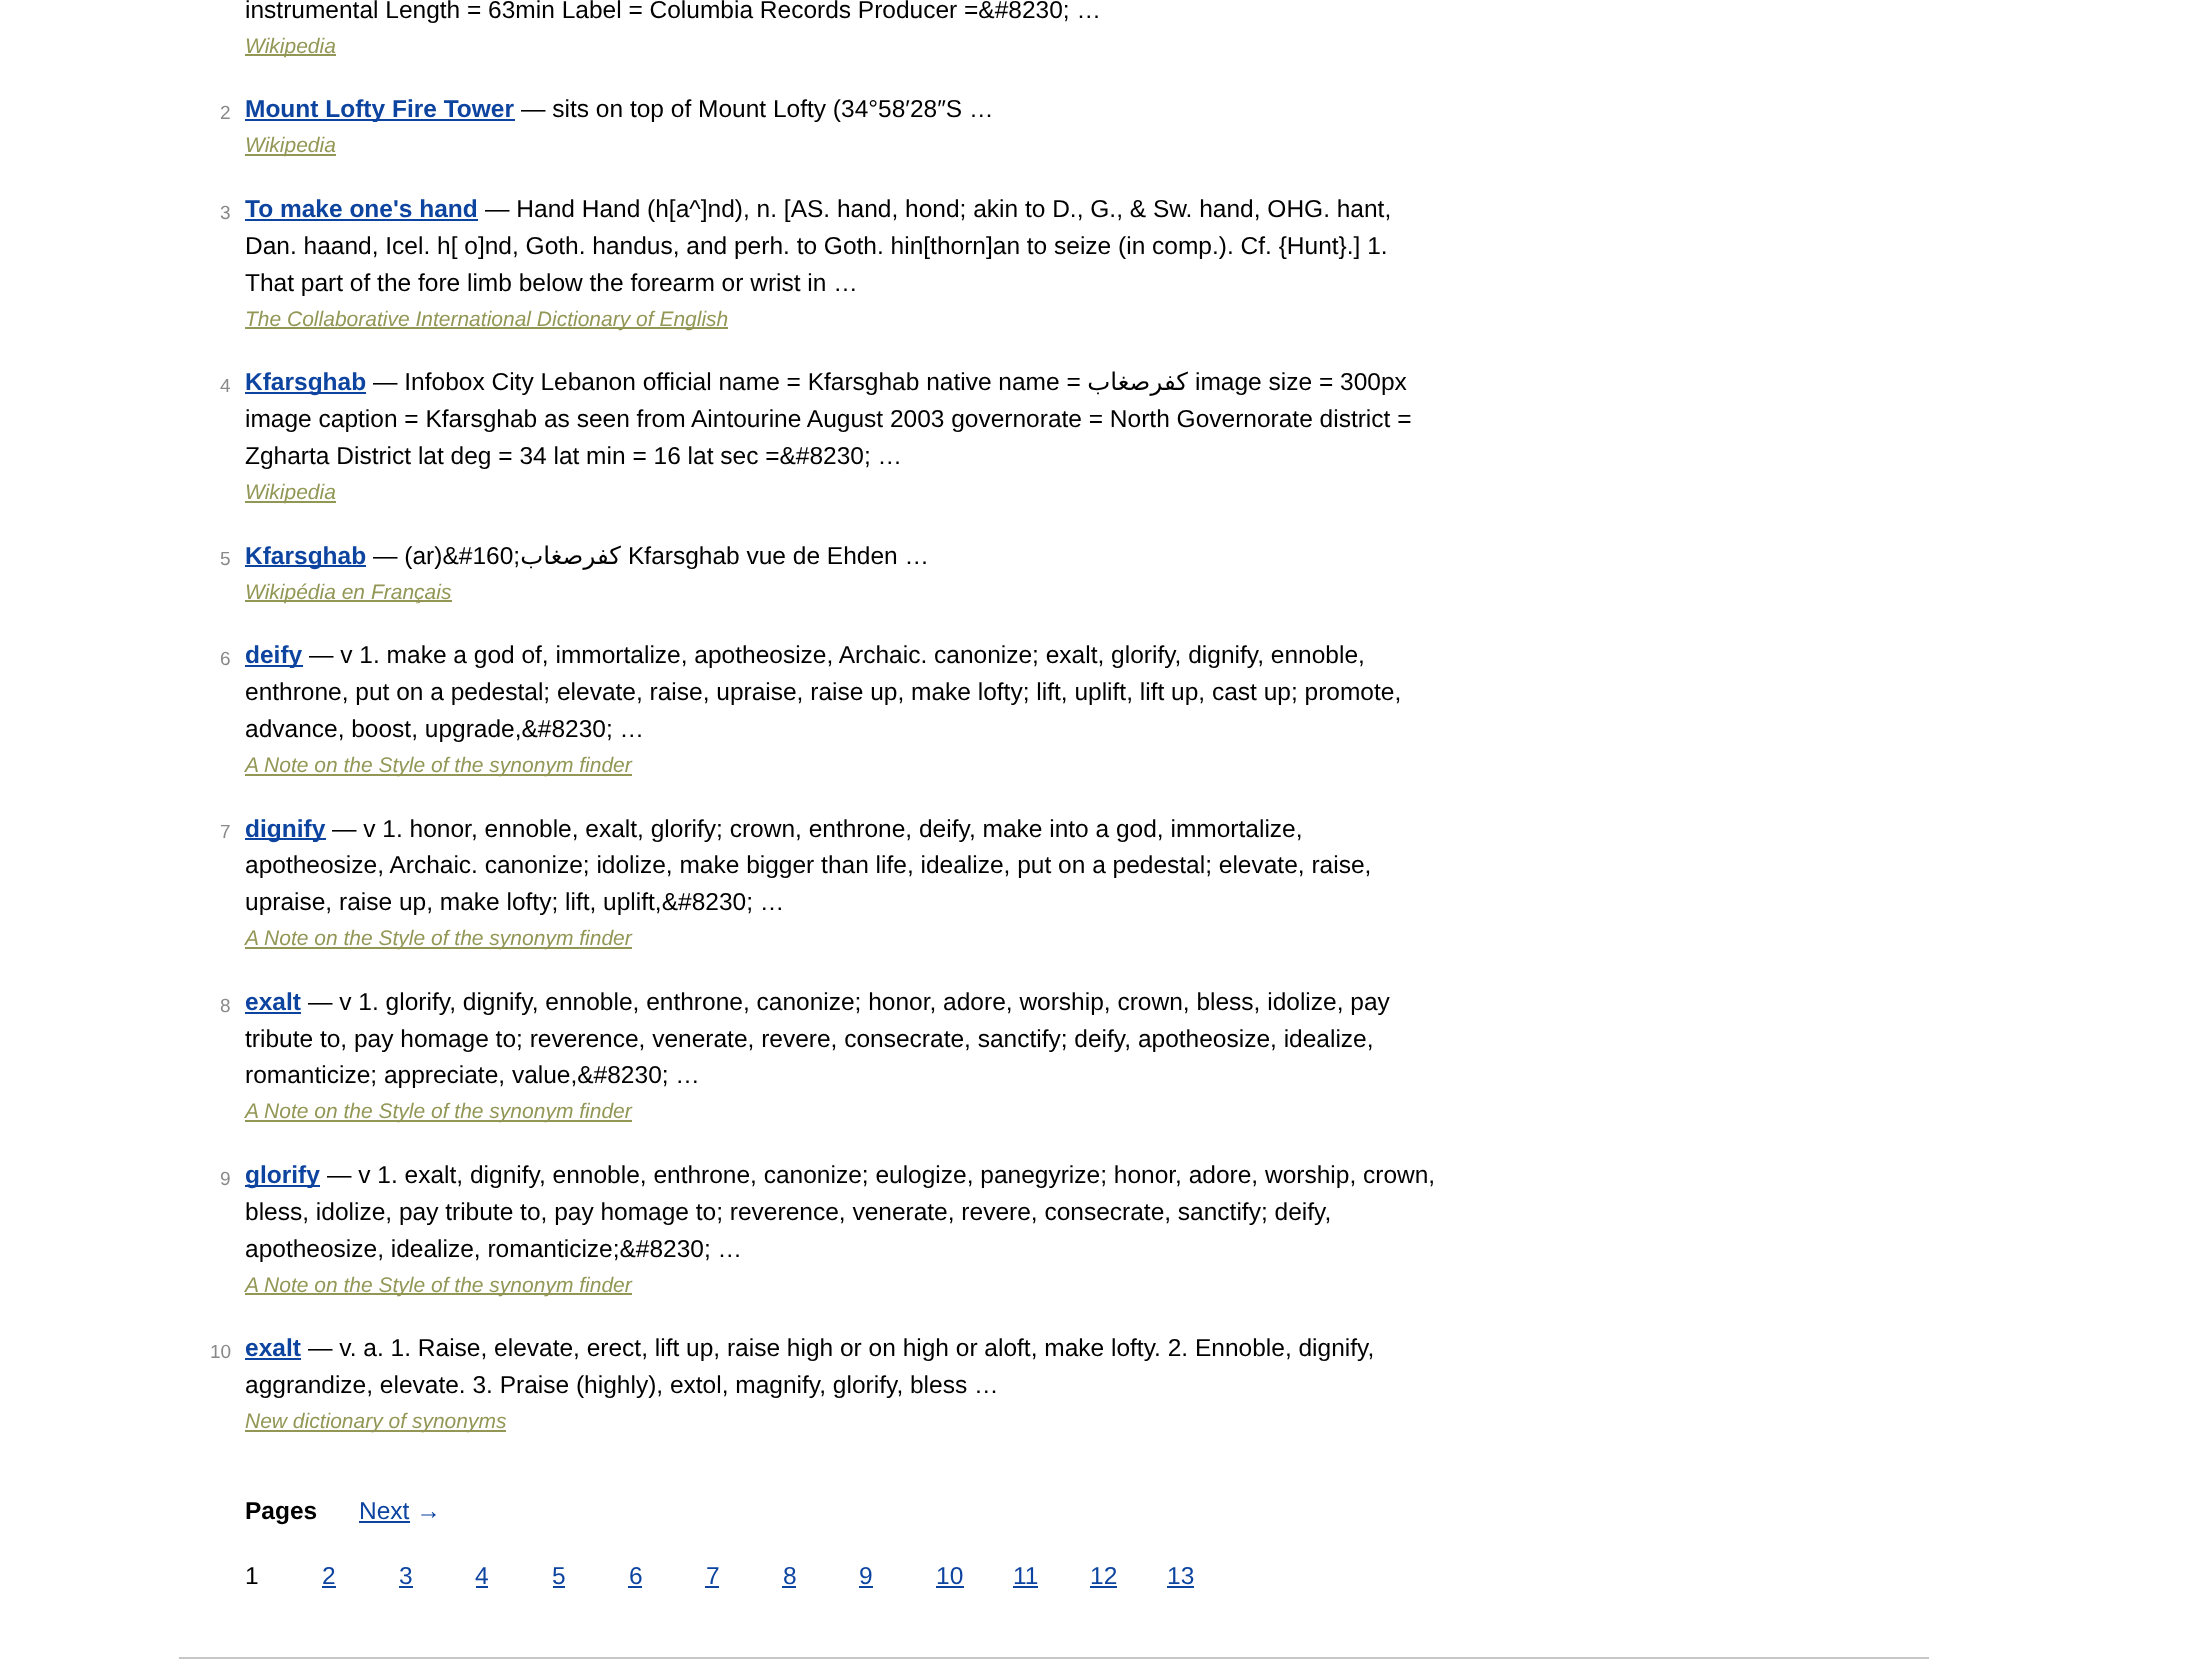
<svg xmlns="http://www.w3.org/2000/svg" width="2193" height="1668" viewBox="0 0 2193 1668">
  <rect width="100%" height="100%" fill="rgb(255,255,255)"/>
  <text x="245" y="18" font-family="Liberation Sans" font-size="24.5" fill="rgb(0,0,0)">instrumental Length = 63min Label = Columbia Records Producer =&amp;#8230; …</text>
  <rect x="245" y="54" width="91" height="2" fill="rgb(147,151,86)"/>
  <text x="245" y="53" font-family="Liberation Sans" font-size="21" font-style="italic" fill="rgb(147,151,86)">Wikipedia</text>
  <text x="220" y="119" font-family="Liberation Sans" font-size="19" fill="rgb(137,137,137)">2</text>
  <rect x="245" y="119" width="270" height="2" fill="rgb(13,68,160)"/>
  <text x="245" y="117" font-family="Liberation Sans" font-size="24.5" font-weight="bold" fill="rgb(13,68,160)">Mount Lofty Fire Tower</text>
  <text x="521" y="117" font-family="Liberation Sans" font-size="24.5" fill="rgb(0,0,0)">— sits on top of Mount Lofty (34°58′28″S …</text>
  <rect x="245" y="154" width="91" height="2" fill="rgb(147,151,86)"/>
  <text x="245" y="152" font-family="Liberation Sans" font-size="21" font-style="italic" fill="rgb(147,151,86)">Wikipedia</text>
  <text x="220" y="219" font-family="Liberation Sans" font-size="19" fill="rgb(137,137,137)">3</text>
  <text x="245" y="217" font-family="Liberation Sans" font-size="24.5" font-weight="bold" fill="rgb(13,68,160)">To make one's hand</text>
  <rect x="245" y="219" width="233" height="2" fill="rgb(13,68,160)"/>
  <g font-family="Liberation Sans" font-size="24.5" fill="rgb(0,0,0)">
    <text x="485" y="217">— Hand Hand (h[a^]nd), n. [AS. hand, hond; akin to D., G., &amp; Sw. hand, OHG. hant,</text>
    <text>
      <tspan x="245" y="254">Dan. haand, Icel. h[ o]nd, Goth. handus, and perh. to Goth. hin[thorn]an to seize (in comp.). Cf. {Hunt}.] 1.</tspan>
      <tspan x="245" y="291">That part of the fore limb below the forearm or wrist in …</tspan>
    </text>
  </g>
  <rect x="245" y="327" width="483" height="2" fill="rgb(147,151,86)"/>
  <text x="245" y="326" font-family="Liberation Sans" font-size="21" font-style="italic" fill="rgb(147,151,86)">The Collaborative International Dictionary of English</text>
  <text x="220" y="392" font-family="Liberation Sans" font-size="19" fill="rgb(137,137,137)">4</text>
  <rect x="245" y="392" width="121" height="2" fill="rgb(13,68,160)"/>
  <text x="245" y="390" font-family="Liberation Sans" font-size="24.5" font-weight="bold" fill="rgb(13,68,160)">Kfarsghab</text>
  <text x="373" y="390" font-family="Liberation Sans" font-size="24.5" fill="rgb(0,0,0)">— Infobox City Lebanon official name = Kfarsghab native name =</text>
  <text x="1188" y="390" font-family="DejaVu Sans" font-size="24.5" direction="rtl" fill="rgb(0,0,0)">كفرصغاب</text>
  <g font-family="Liberation Sans" font-size="24.5" fill="rgb(0,0,0)">
    <text x="1195" y="390">image size = 300px</text>
    <text>
      <tspan x="245" y="427">image caption = Kfarsghab as seen from Aintourine August 2003 governorate = North Governorate district =</tspan>
      <tspan x="245" y="464">Zgharta District lat deg = 34 lat min = 16 lat sec =&amp;#8230; …</tspan>
    </text>
  </g>
  <rect x="245" y="501" width="91" height="2" fill="rgb(147,151,86)"/>
  <text x="245" y="499" font-family="Liberation Sans" font-size="21" font-style="italic" fill="rgb(147,151,86)">Wikipedia</text>
  <text x="220" y="565" font-family="Liberation Sans" font-size="19" fill="rgb(137,137,137)">5</text>
  <rect x="245" y="565" width="121" height="2" fill="rgb(13,68,160)"/>
  <text x="245" y="564" font-family="Liberation Sans" font-size="24.5" font-weight="bold" fill="rgb(13,68,160)">Kfarsghab</text>
  <text x="373" y="564" font-family="Liberation Sans" font-size="24.5" fill="rgb(0,0,0)">— (ar)&amp;#160;</text>
  <text x="621" y="564" font-family="DejaVu Sans" font-size="24.5" direction="rtl" fill="rgb(0,0,0)">كفرصغاب</text>
  <text x="628" y="564" font-family="Liberation Sans" font-size="24.5" fill="rgb(0,0,0)">Kfarsghab vue de Ehden …</text>
  <rect x="245" y="600" width="207" height="2" fill="rgb(147,151,86)"/>
  <text x="245" y="599" font-family="Liberation Sans" font-size="21" font-style="italic" fill="rgb(147,151,86)">Wikipédia en Français</text>
  <text x="220" y="665" font-family="Liberation Sans" font-size="19" fill="rgb(137,137,137)">6</text>
  <rect x="245" y="665" width="58" height="2" fill="rgb(13,68,160)"/>
  <text x="245" y="663" font-family="Liberation Sans" font-size="24.5" font-weight="bold" fill="rgb(13,68,160)">deify</text>
  <g font-family="Liberation Sans" font-size="24.5" fill="rgb(0,0,0)">
    <text x="309" y="663">— v 1. make a god of, immortalize, apotheosize, Archaic. canonize; exalt, glorify, dignify, ennoble,</text>
    <text>
      <tspan x="245" y="700">enthrone, put on a pedestal; elevate, raise, upraise, raise up, make lofty; lift, uplift, lift up, cast up; promote,</tspan>
      <tspan x="245" y="737">advance, boost, upgrade,&amp;#8230; …</tspan>
    </text>
  </g>
  <rect x="245" y="774" width="387" height="2" fill="rgb(147,151,86)"/>
  <text x="245" y="772" font-family="Liberation Sans" font-size="21" font-style="italic" fill="rgb(147,151,86)">A Note on the Style of the synonym finder</text>
  <text x="220" y="838" font-family="Liberation Sans" font-size="19" fill="rgb(137,137,137)">7</text>
  <rect x="245" y="838" width="81" height="2" fill="rgb(13,68,160)"/>
  <text x="245" y="837" font-family="Liberation Sans" font-size="24.5" font-weight="bold" fill="rgb(13,68,160)">dignify</text>
  <g font-family="Liberation Sans" font-size="24.5" fill="rgb(0,0,0)">
    <text x="332" y="837">— v 1. honor, ennoble, exalt, glorify; crown, enthrone, deify, make into a god, immortalize,</text>
    <text>
      <tspan x="245" y="873">apotheosize, Archaic. canonize; idolize, make bigger than life, idealize, put on a pedestal; elevate, raise,</tspan>
      <tspan x="245" y="910">upraise, raise up, make lofty; lift, uplift,&amp;#8230; …</tspan>
    </text>
  </g>
  <rect x="245" y="947" width="387" height="2" fill="rgb(147,151,86)"/>
  <text x="245" y="945" font-family="Liberation Sans" font-size="21" font-style="italic" fill="rgb(147,151,86)">A Note on the Style of the synonym finder</text>
  <text x="220" y="1012" font-family="Liberation Sans" font-size="19" fill="rgb(137,137,137)">8</text>
  <text x="245" y="1010" font-family="Liberation Sans" font-size="24.5" font-weight="bold" fill="rgb(13,68,160)">exalt</text>
  <rect x="245" y="1012" width="56" height="2" fill="rgb(13,68,160)"/>
  <g font-family="Liberation Sans" font-size="24.5" fill="rgb(0,0,0)">
    <text x="308" y="1010">— v 1. glorify, dignify, ennoble, enthrone, canonize; honor, adore, worship, crown, bless, idolize, pay</text>
    <text>
      <tspan x="245" y="1047">tribute to, pay homage to; reverence, venerate, revere, consecrate, sanctify; deify, apotheosize, idealize,</tspan>
      <tspan x="245" y="1083">romanticize; appreciate, value,&amp;#8230; …</tspan>
    </text>
  </g>
  <rect x="245" y="1120" width="387" height="2" fill="rgb(147,151,86)"/>
  <text x="245" y="1118" font-family="Liberation Sans" font-size="21" font-style="italic" fill="rgb(147,151,86)">A Note on the Style of the synonym finder</text>
  <text x="220" y="1185" font-family="Liberation Sans" font-size="19" fill="rgb(137,137,137)">9</text>
  <rect x="245" y="1185" width="75" height="2" fill="rgb(13,68,160)"/>
  <text x="245" y="1183" font-family="Liberation Sans" font-size="24.5" font-weight="bold" fill="rgb(13,68,160)">glorify</text>
  <g font-family="Liberation Sans" font-size="24.5" fill="rgb(0,0,0)">
    <text x="327" y="1183">— v 1. exalt, dignify, ennoble, enthrone, canonize; eulogize, panegyrize; honor, adore, worship, crown,</text>
    <text>
      <tspan x="245" y="1220">bless, idolize, pay tribute to, pay homage to; reverence, venerate, revere, consecrate, sanctify; deify,</tspan>
      <tspan x="245" y="1257">apotheosize, idealize, romanticize;&amp;#8230; …</tspan>
    </text>
  </g>
  <rect x="245" y="1293" width="387" height="2" fill="rgb(147,151,86)"/>
  <text x="245" y="1292" font-family="Liberation Sans" font-size="21" font-style="italic" fill="rgb(147,151,86)">A Note on the Style of the synonym finder</text>
  <text x="210" y="1358" font-family="Liberation Sans" font-size="19" fill="rgb(137,137,137)">10</text>
  <text x="245" y="1356" font-family="Liberation Sans" font-size="24.5" font-weight="bold" fill="rgb(13,68,160)">exalt</text>
  <rect x="245" y="1358" width="56" height="2" fill="rgb(13,68,160)"/>
  <g font-family="Liberation Sans" font-size="24.5" fill="rgb(0,0,0)">
    <text x="308" y="1356">— v. a. 1. Raise, elevate, erect, lift up, raise high or on high or aloft, make lofty. 2. Ennoble, dignify,</text>
    <text x="245" y="1393">aggrandize, elevate. 3. Praise (highly), extol, magnify, glorify, bless …</text>
  </g>
  <rect x="245" y="1430" width="261" height="2" fill="rgb(147,151,86)"/>
  <text x="245" y="1428" font-family="Liberation Sans" font-size="21" font-style="italic" fill="rgb(147,151,86)">New dictionary of synonyms</text>
  <text x="245" y="1519" font-family="Liberation Sans" font-size="24.5" font-weight="bold" fill="rgb(0,0,0)">Pages</text>
  <text x="359" y="1519" font-family="Liberation Sans" font-size="24.5" fill="rgb(13,68,160)">Next →</text>
  <rect x="359" y="1521" width="51" height="2" fill="rgb(13,68,160)"/>
  <text x="245" y="1584" font-family="Liberation Sans" font-size="24.5" fill="rgb(0,0,0)">1</text>
  <text x="322" y="1584" font-family="Liberation Sans" font-size="24.5" fill="rgb(13,68,160)">2</text>
  <rect x="322" y="1586" width="14" height="2" fill="rgb(13,68,160)"/>
  <text x="399" y="1584" font-family="Liberation Sans" font-size="24.5" fill="rgb(13,68,160)">3</text>
  <rect x="399" y="1586" width="14" height="2" fill="rgb(13,68,160)"/>
  <text x="475" y="1584" font-family="Liberation Sans" font-size="24.5" fill="rgb(13,68,160)">4</text>
  <rect x="476" y="1586" width="12" height="2" fill="rgb(13,68,160)"/>
  <text x="552" y="1584" font-family="Liberation Sans" font-size="24.5" fill="rgb(13,68,160)">5</text>
  <rect x="553" y="1586" width="12" height="2" fill="rgb(13,68,160)"/>
  <text x="629" y="1584" font-family="Liberation Sans" font-size="24.5" fill="rgb(13,68,160)">6</text>
  <rect x="628" y="1586" width="14" height="2" fill="rgb(13,68,160)"/>
  <text x="706" y="1584" font-family="Liberation Sans" font-size="24.5" fill="rgb(13,68,160)">7</text>
  <rect x="705" y="1586" width="14" height="2" fill="rgb(13,68,160)"/>
  <text x="783" y="1584" font-family="Liberation Sans" font-size="24.5" fill="rgb(13,68,160)">8</text>
  <rect x="782" y="1586" width="14" height="2" fill="rgb(13,68,160)"/>
  <text x="859" y="1584" font-family="Liberation Sans" font-size="24.5" fill="rgb(13,68,160)">9</text>
  <rect x="859" y="1586" width="14" height="2" fill="rgb(13,68,160)"/>
  <text x="936" y="1584" font-family="Liberation Sans" font-size="24.5" fill="rgb(13,68,160)">10</text>
  <rect x="936" y="1586" width="28" height="2" fill="rgb(13,68,160)"/>
  <text x="1013" y="1584" font-family="Liberation Sans" font-size="24.5" fill="rgb(13,68,160)">11</text>
  <rect x="1013" y="1586" width="25" height="2" fill="rgb(13,68,160)"/>
  <text x="1090" y="1584" font-family="Liberation Sans" font-size="24.5" fill="rgb(13,68,160)">12</text>
  <rect x="1090" y="1586" width="27" height="2" fill="rgb(13,68,160)"/>
  <text x="1167" y="1584" font-family="Liberation Sans" font-size="24.5" fill="rgb(13,68,160)">13</text>
  <rect x="1167" y="1586" width="27" height="2" fill="rgb(13,68,160)"/>
  <rect x="179" y="1657" width="1750" height="2" fill="rgb(199,199,199)"/>
</svg>
